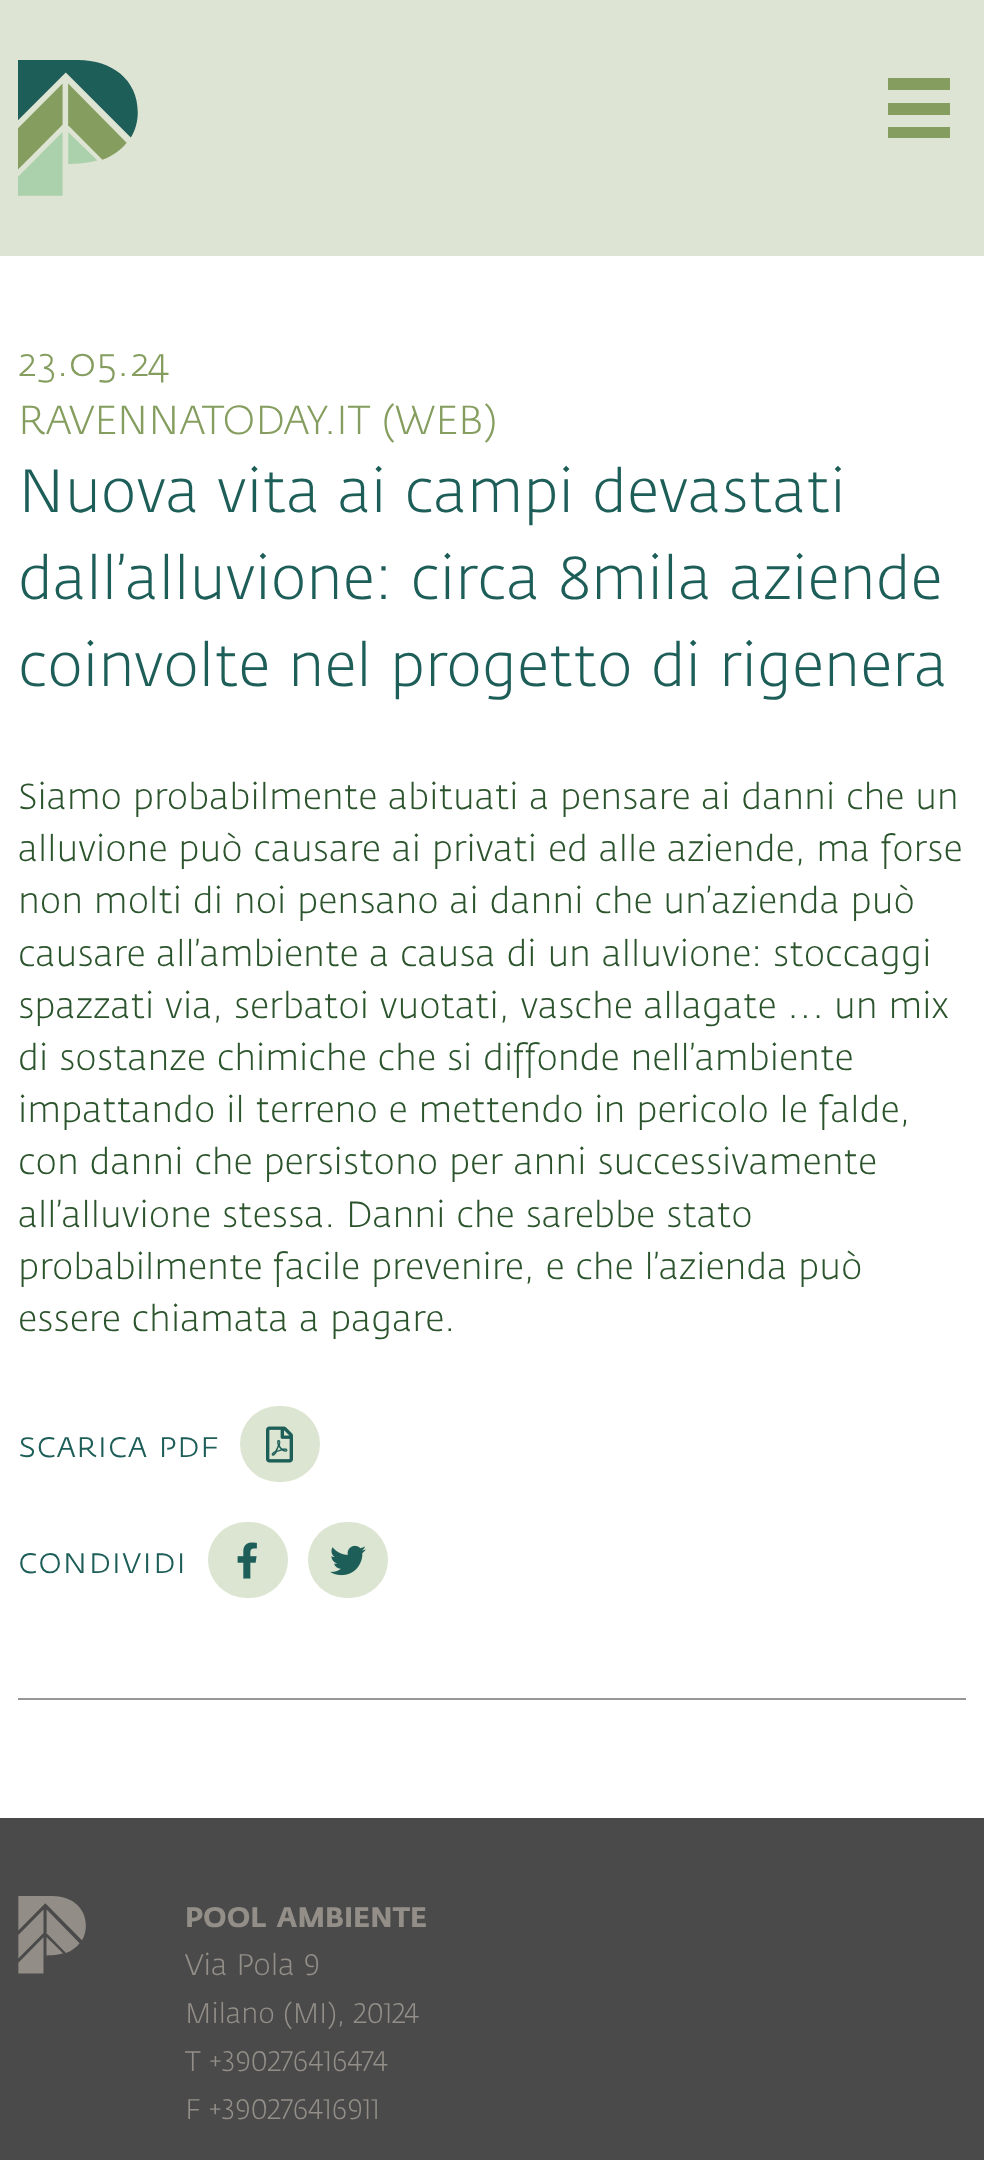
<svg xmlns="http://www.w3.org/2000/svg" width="984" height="2160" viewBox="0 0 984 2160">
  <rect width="100%" height="100%" fill="rgb(221,228,211)"/>
  <image x="18" y="60" width="120" height="136" href="pic1.png"/>
  <rect x="888" y="78" width="62" height="12" fill="rgb(133,158,95)"/>
  <rect x="888" y="103" width="62" height="12" fill="rgb(133,158,95)"/>
  <rect x="888" y="127" width="62" height="11" fill="rgb(133,158,95)"/>
  <rect x="0" y="256" width="984" height="1562" fill="rgb(255,255,255)"/>
  <text x="18" y="376" font-family="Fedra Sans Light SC" font-size="40" font-weight="300" fill="rgb(133,158,95)">23.05.24</text>
  <rect x="18" y="1698" width="948" height="2" fill="rgb(151,151,151)"/>
  <text x="18" y="434" font-family="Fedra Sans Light" font-size="40" font-weight="300" fill="rgb(133,158,95)">RAVENNATODAY.IT (WEB)</text>
  <g font-family="Fedra Sans Light" font-size="60" font-weight="300" fill="rgb(29,94,88)">
    <text>
      <tspan x="18" y="512">Nuova vita ai campi devastati</tspan>
      <tspan x="18" y="599">dall’alluvione: circa 8mila aziende</tspan>
      <tspan x="18" y="686">coinvolte nel progetto di rigenera</tspan>
    </text>
  </g>
  <g font-family="Fedra Sans Light" font-size="36" font-weight="300" fill="rgb(43,84,44)">
    <text>
      <tspan x="18" y="809">Siamo probabilmente abituati a pensare ai danni che un</tspan>
      <tspan x="18" y="861">alluvione può causare ai privati ed alle aziende, ma forse</tspan>
      <tspan x="18" y="913">non molti di noi pensano ai danni che un’azienda può</tspan>
      <tspan x="18" y="966">causare all’ambiente a causa di un alluvione: stoccaggi</tspan>
      <tspan x="18" y="1018">spazzati via, serbatoi vuotati, vasche allagate … un mix</tspan>
      <tspan x="18" y="1070">di sostanze chimiche che si diffonde nell’ambiente</tspan>
      <tspan x="18" y="1122">impattando il terreno e mettendo in pericolo le falde,</tspan>
      <tspan x="18" y="1174">con danni che persistono per anni successivamente</tspan>
      <tspan x="18" y="1227">all’alluvione stessa. Danni che sarebbe stato</tspan>
      <tspan x="18" y="1279">probabilmente facile prevenire, e che l’azienda può</tspan>
      <tspan x="18" y="1331">essere chiamata a pagare.</tspan>
    </text>
  </g>
  <text x="18" y="1457" font-family="Fedra Sans Light SC" font-size="36" font-weight="300" fill="rgb(29,94,88)">scarica pdf</text>
  <rect x="240" y="1406" width="80" height="76" rx="38" fill="rgb(219,229,209)"/>
  <image x="266" y="1426" width="27" height="37" href="pic2.png"/>
  <text x="18" y="1573" font-family="Fedra Sans Light SC" font-size="36" font-weight="300" fill="rgb(29,94,88)">condividi</text>
  <rect x="208" y="1522" width="80" height="76" rx="38" fill="rgb(219,229,209)"/>
  <image x="237" y="1542" width="20" height="37" href="pic3.png"/>
  <rect x="308" y="1522" width="80" height="76" rx="38" fill="rgb(219,229,209)"/>
  <image x="330" y="1545" width="36" height="31" href="pic4.png"/>
  <rect x="0" y="1818" width="984" height="342" fill="rgb(74,74,74)"/>
  <image x="18" y="1896" width="68" height="78" href="pic5.png"/>
  <text x="185" y="1927" font-family="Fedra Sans" font-size="28" font-weight="bold" fill="rgb(147,143,136)">POOL AMBIENTE</text>
  <text x="185" y="1975" font-family="Fedra Sans Light" font-size="29.5" font-weight="300" fill="rgb(147,143,136)">Via Pola 9</text>
  <g font-family="Fedra Sans Light" font-size="28" font-weight="300" fill="rgb(147,143,136)">
    <text>
      <tspan x="185" y="2023">Milano (MI), 20124</tspan>
      <tspan x="185" y="2071">T +390276416474</tspan>
      <tspan x="185" y="2119">F +390276416911</tspan>
    </text>
  </g>
</svg>
